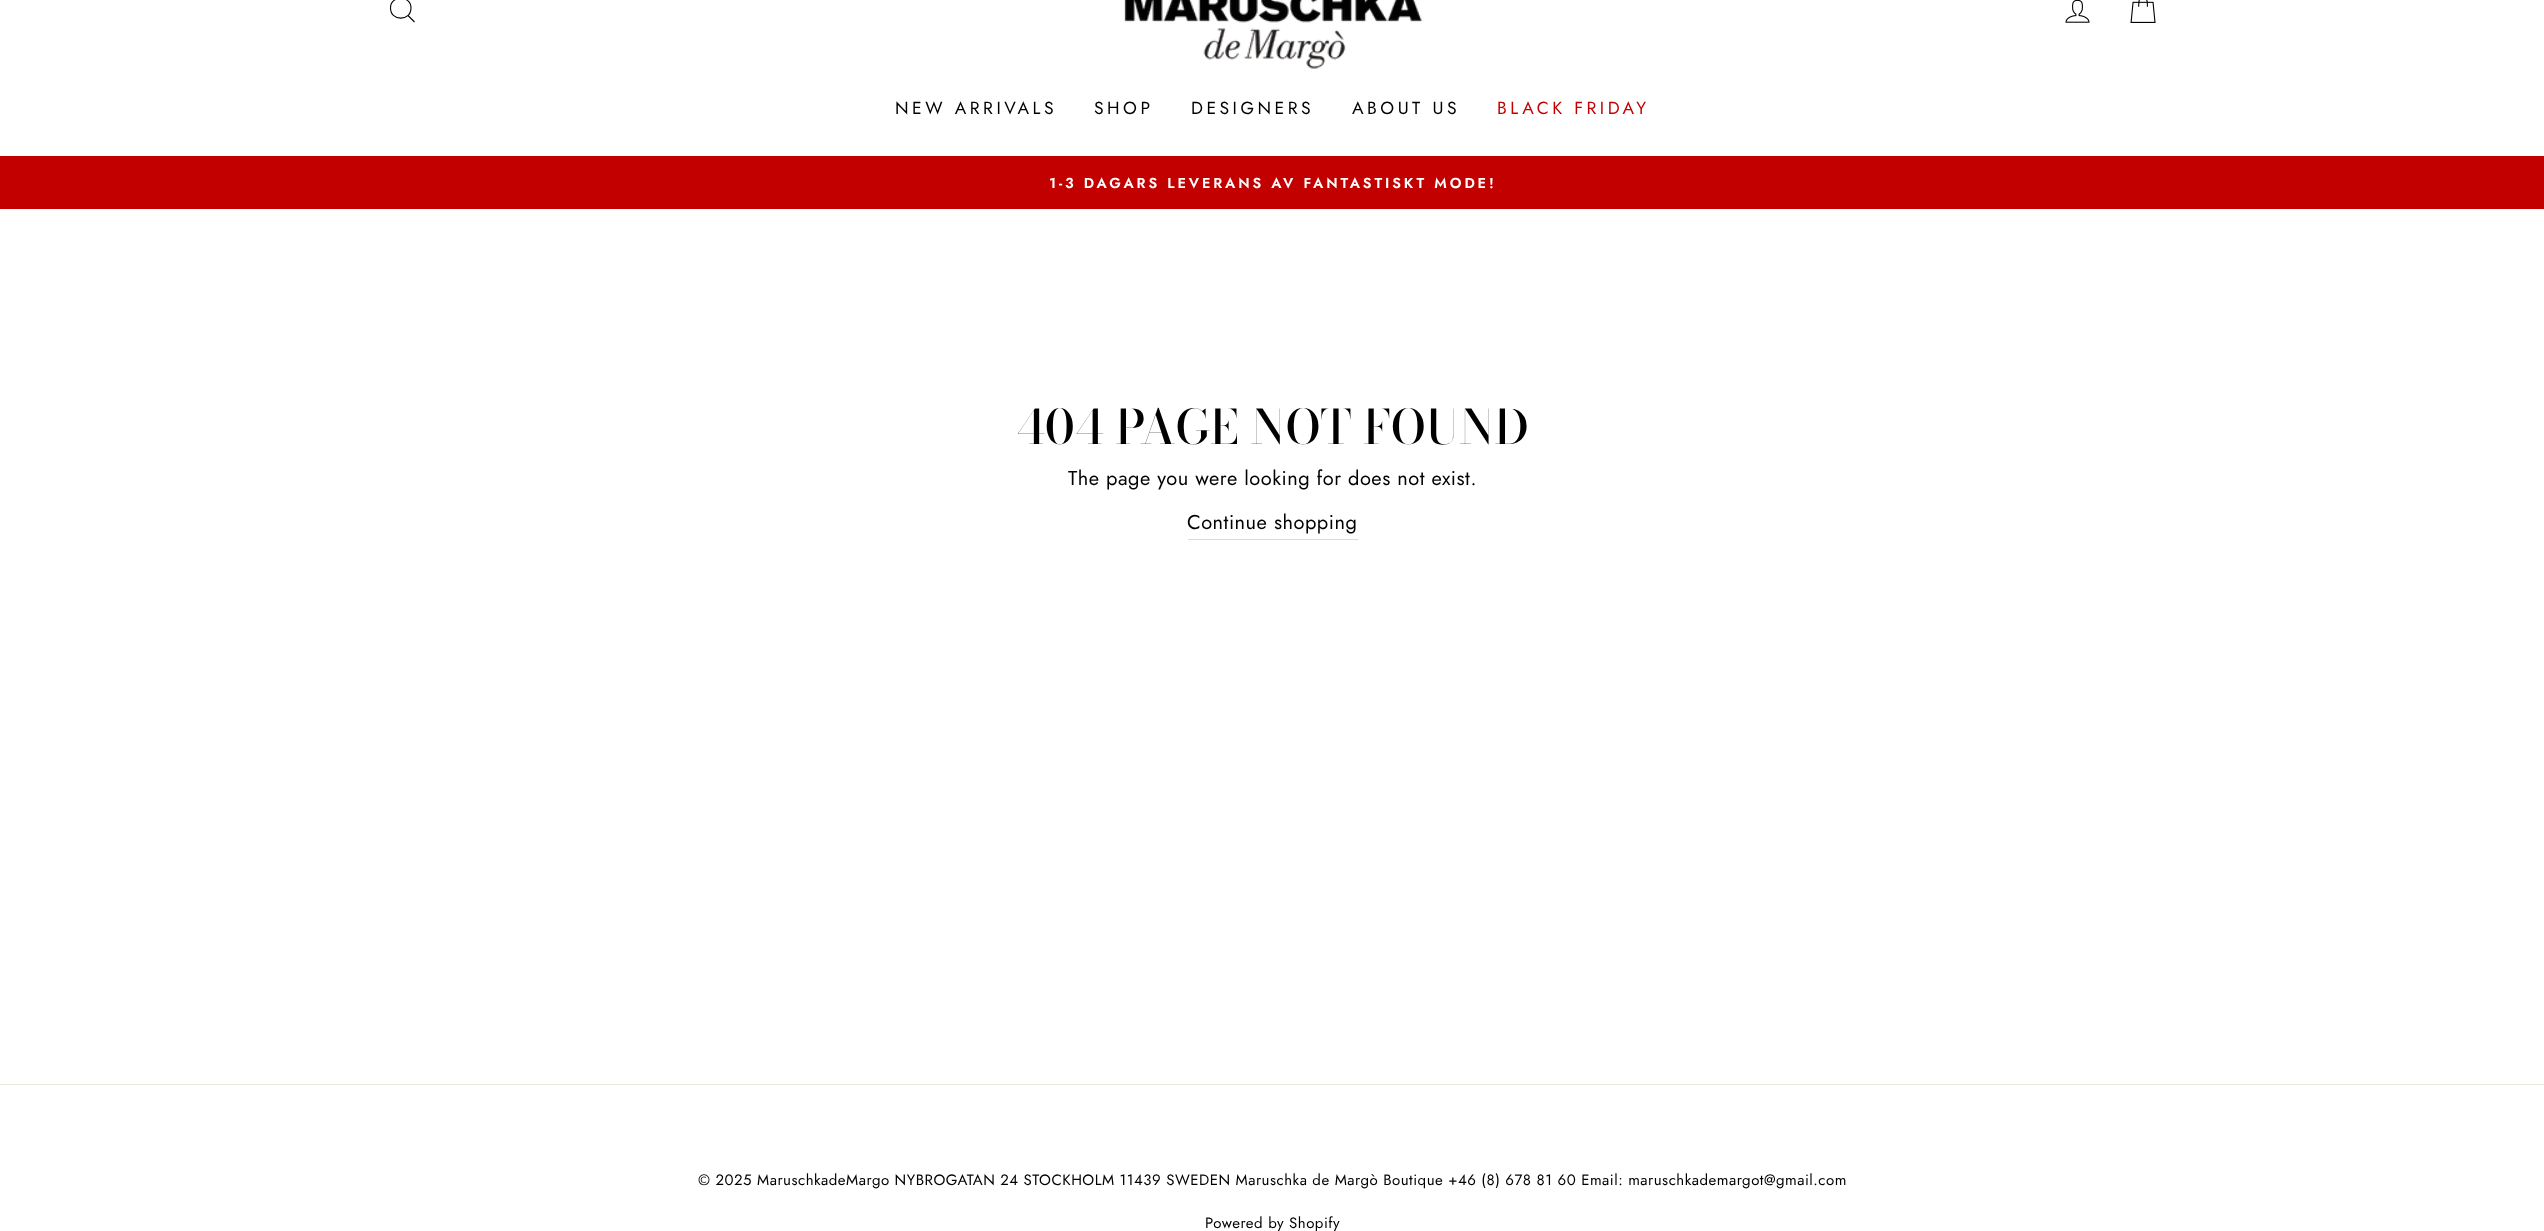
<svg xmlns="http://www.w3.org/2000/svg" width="2544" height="1231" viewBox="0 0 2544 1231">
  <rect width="100%" height="100%" fill="rgb(255,255,255)"/>
  <path d="M411 8C411 21.5 390.5 21.5 390.5 8C390.5-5 411-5 411 8ZM414.5 22L408 15.5" fill="none" stroke="rgb(0,0,0)" stroke-width="1.1"/>
  <image x="1124" y="0" width="299" height="69" href="pic1.png"/>
  <image x="2065" y="0" width="25" height="23" href="pic2.png"/>
  <image x="2130" y="0" width="26" height="23" href="pic3.png"/>
  <g font-family="Jost" font-size="17.5" letter-spacing="3.5" fill="rgb(0,0,0)">
    <text x="895" y="114">NEW ARRIVALS</text>
    <text x="1094" y="114">SHOP</text>
    <text x="1191" y="114">DESIGNERS</text>
    <text x="1352" y="114">ABOUT US</text>
  </g>
  <text x="1497" y="114" font-family="Jost" font-size="17.5" letter-spacing="3.5" fill="rgb(194,0,0)">BLACK FRIDAY</text>
  <rect x="0" y="156" width="2544" height="53" fill="rgb(194,0,0)"/>
  <text x="1049" y="188" font-family="Jost" font-size="14.45" font-weight="600" letter-spacing="2.9" fill="rgb(255,255,255)">1-3 DAGARS LEVERANS AV FANTASTISKT MODE!</text>
  <text x="1016" y="444" font-family="Bodoni Moda" font-size="47.5" font-weight="500" fill="rgb(0,0,0)">404 PAGE NOT FOUND</text>
  <text x="1068" y="485" font-family="Jost" font-size="20" letter-spacing="0.5" fill="rgb(0,0,0)">The page you were looking for does not exist.</text>
  <rect x="1188" y="539" width="170" height="1" fill="rgb(217,217,217)"/>
  <text x="1187" y="529" font-family="Jost" font-size="20" letter-spacing="0.5" fill="rgb(0,0,0)">Continue shopping</text>
  <rect x="0" y="1084" width="2544" height="1" fill="rgb(232,232,225)"/>
  <g font-family="Jost" font-size="15" letter-spacing="0.5" fill="rgb(0,0,0)">
    <text x="698" y="1185">© 2025 MaruschkadeMargo NYBROGATAN 24 STOCKHOLM 11439 SWEDEN Maruschka de Margò Boutique +46 (8) 678 81 60 Email: maruschkademargot@gmail.com</text>
    <text x="1205" y="1228">Powered by Shopify</text>
  </g>
</svg>
